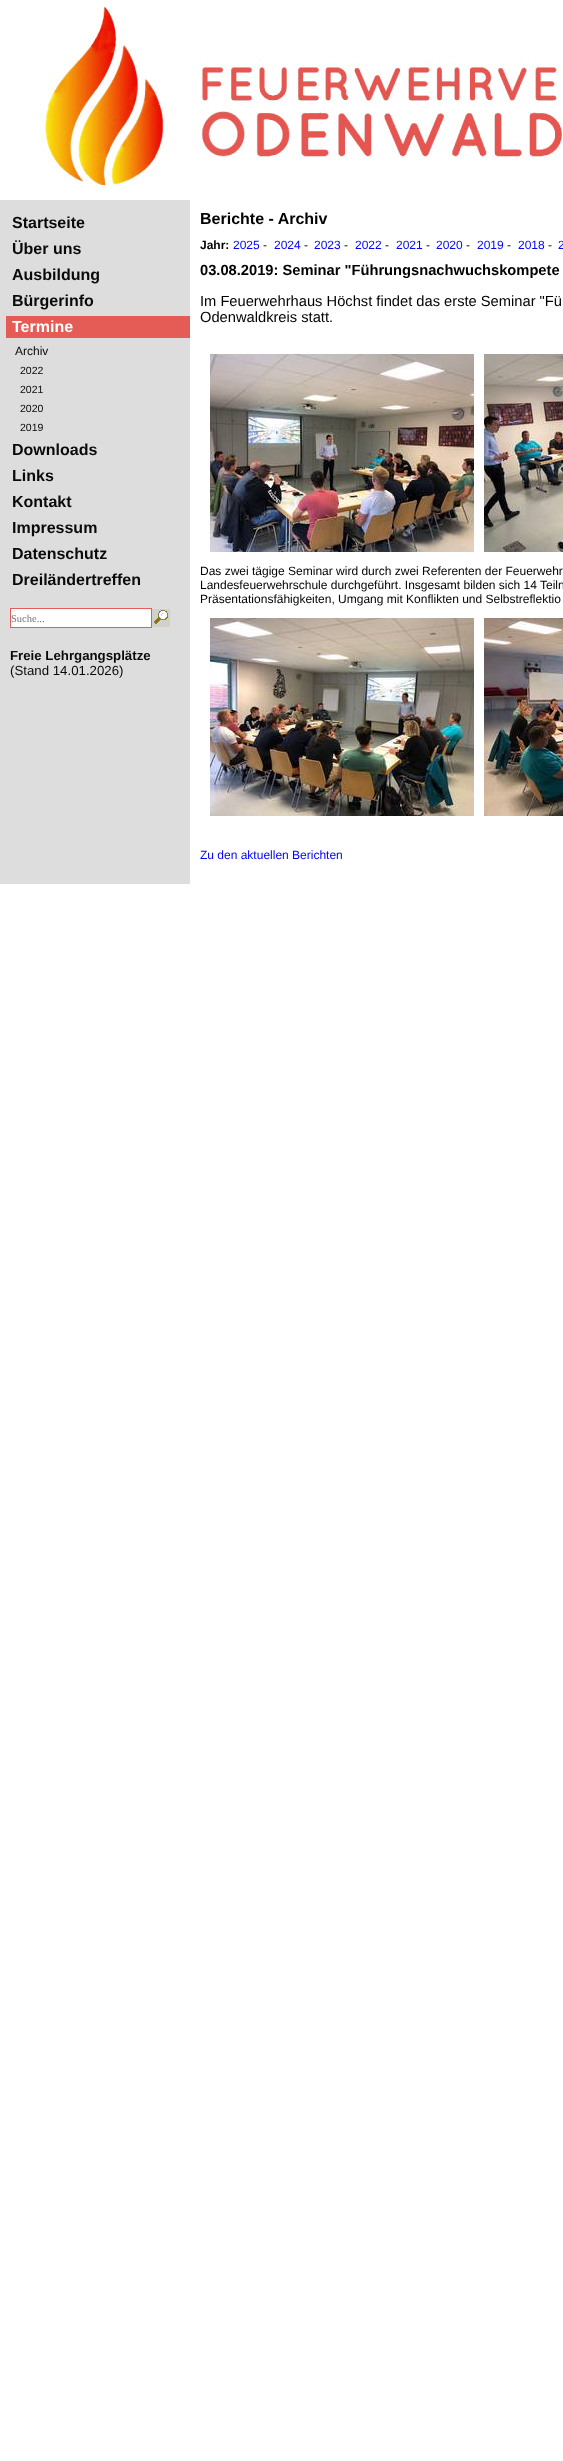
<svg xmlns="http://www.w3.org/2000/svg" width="563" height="2461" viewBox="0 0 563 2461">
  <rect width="100%" height="100%" fill="rgb(255,255,255)"/>
  <image x="40" y="0" width="523" height="191" href="pic1.png"/>
  <rect x="0" y="200" width="190" height="684" fill="rgb(221,221,221)"/>
  <g font-family="Liberation Sans" font-size="16" font-weight="bold" fill="rgb(10,10,10)">
    <text>
      <tspan x="12" y="228">Startseite</tspan>
      <tspan x="12" y="254">Über uns</tspan>
      <tspan x="12" y="280">Ausbildung</tspan>
      <tspan x="12" y="306">Bürgerinfo</tspan>
    </text>
  </g>
  <rect x="6" y="316" width="184" height="22" fill="rgb(229,91,86)"/>
  <text x="12" y="332" font-family="Liberation Sans" font-size="16" font-weight="bold" fill="rgb(255,255,255)">Termine</text>
  <text x="15" y="355" font-family="Liberation Sans" font-size="12" fill="rgb(10,10,10)">Archiv</text>
  <g font-family="Liberation Sans" font-size="10.5" fill="rgb(10,10,10)">
    <text>
      <tspan x="20" y="374">2022</tspan>
      <tspan x="20" y="393">2021</tspan>
      <tspan x="20" y="412">2020</tspan>
      <tspan x="20" y="431">2019</tspan>
    </text>
  </g>
  <g font-family="Liberation Sans" font-size="16" font-weight="bold" fill="rgb(10,10,10)">
    <text>
      <tspan x="12" y="455">Downloads</tspan>
      <tspan x="12" y="481">Links</tspan>
      <tspan x="12" y="507">Kontakt</tspan>
      <tspan x="12" y="533">Impressum</tspan>
      <tspan x="12" y="559">Datenschutz</tspan>
      <tspan x="12" y="585">Dreiländertreffen</tspan>
    </text>
  </g>
  <rect x="10.5" y="608.5" width="141" height="19" fill="rgb(255,255,255)" stroke="rgb(229,91,86)"/>
  <text x="11" y="622" font-family="Liberation Serif" font-size="10.5" fill="rgb(117,117,117)">Suche...</text>
  <image x="152" y="609" width="18" height="18" href="pic2.png"/>
  <text x="10" y="660" font-family="Liberation Sans" font-size="13.25" font-weight="bold" fill="rgb(10,10,10)">Freie Lehrgangsplätze</text>
  <text x="10" y="675" font-family="Liberation Sans" font-size="13.25" fill="rgb(10,10,10)">(Stand 14.01.2026)</text>
  <text x="200" y="224" font-family="Liberation Sans" font-size="16" font-weight="bold" fill="rgb(0,0,0)">Berichte - Archiv</text>
  <text x="200" y="249" font-family="Liberation Sans" font-size="12" font-weight="bold" fill="rgb(0,0,0)">Jahr:</text>
  <text x="233" y="249" font-family="Liberation Sans" font-size="12" fill="rgb(0,0,255)">2025</text>
  <text x="263" y="249" font-family="Liberation Sans" font-size="12" fill="rgb(0,0,0)">-</text>
  <text x="274" y="249" font-family="Liberation Sans" font-size="12" fill="rgb(0,0,255)">2024</text>
  <text x="304" y="249" font-family="Liberation Sans" font-size="12" fill="rgb(0,0,0)">-</text>
  <text x="314" y="249" font-family="Liberation Sans" font-size="12" fill="rgb(0,0,255)">2023</text>
  <text x="344" y="249" font-family="Liberation Sans" font-size="12" fill="rgb(0,0,0)">-</text>
  <text x="355" y="249" font-family="Liberation Sans" font-size="12" fill="rgb(0,0,255)">2022</text>
  <text x="385" y="249" font-family="Liberation Sans" font-size="12" fill="rgb(0,0,0)">-</text>
  <text x="396" y="249" font-family="Liberation Sans" font-size="12" fill="rgb(0,0,255)">2021</text>
  <text x="426" y="249" font-family="Liberation Sans" font-size="12" fill="rgb(0,0,0)">-</text>
  <text x="436" y="249" font-family="Liberation Sans" font-size="12" fill="rgb(0,0,255)">2020</text>
  <text x="466" y="249" font-family="Liberation Sans" font-size="12" fill="rgb(0,0,0)">-</text>
  <text x="477" y="249" font-family="Liberation Sans" font-size="12" fill="rgb(0,0,255)">2019</text>
  <text x="507" y="249" font-family="Liberation Sans" font-size="12" fill="rgb(0,0,0)">-</text>
  <text x="518" y="249" font-family="Liberation Sans" font-size="12" fill="rgb(0,0,255)">2018</text>
  <text x="548" y="249" font-family="Liberation Sans" font-size="12" fill="rgb(0,0,0)">-</text>
  <text x="558" y="249" font-family="Liberation Sans" font-size="12" fill="rgb(0,0,255)">2</text>
  <text x="200" y="275" font-family="Liberation Sans" font-size="14.7" font-weight="bold" fill="rgb(0,0,0)">03.08.2019: Seminar "Führungsnachwuchskompete</text>
  <g font-family="Liberation Sans" font-size="14.7" fill="rgb(0,0,0)">
    <text>
      <tspan x="200" y="306">Im Feuerwehrhaus Höchst findet das erste Seminar "Fü</tspan>
      <tspan x="200" y="322">Odenwaldkreis statt.</tspan>
    </text>
  </g>
  <image x="210" y="354" width="264" height="198" href="pic3.png"/>
  <image x="484" y="354" width="79" height="198" href="pic4.png"/>
  <g font-family="Liberation Sans" font-size="12" fill="rgb(0,0,0)">
    <text>
      <tspan x="200" y="575">Das zwei tägige Seminar wird durch zwei Referenten der Feuerwehr</tspan>
      <tspan x="200" y="589">Landesfeuerwehrschule durchgeführt. Insgesamt bilden sich 14 Teiln</tspan>
      <tspan x="200" y="603">Präsentationsfähigkeiten, Umgang mit Konflikten und Selbstreflektio</tspan>
    </text>
  </g>
  <image x="210" y="618" width="264" height="198" href="pic5.png"/>
  <image x="484" y="618" width="79" height="198" href="pic6.png"/>
  <text x="200" y="859" font-family="Liberation Sans" font-size="12" fill="rgb(0,0,255)">Zu den aktuellen Berichten</text>
</svg>
